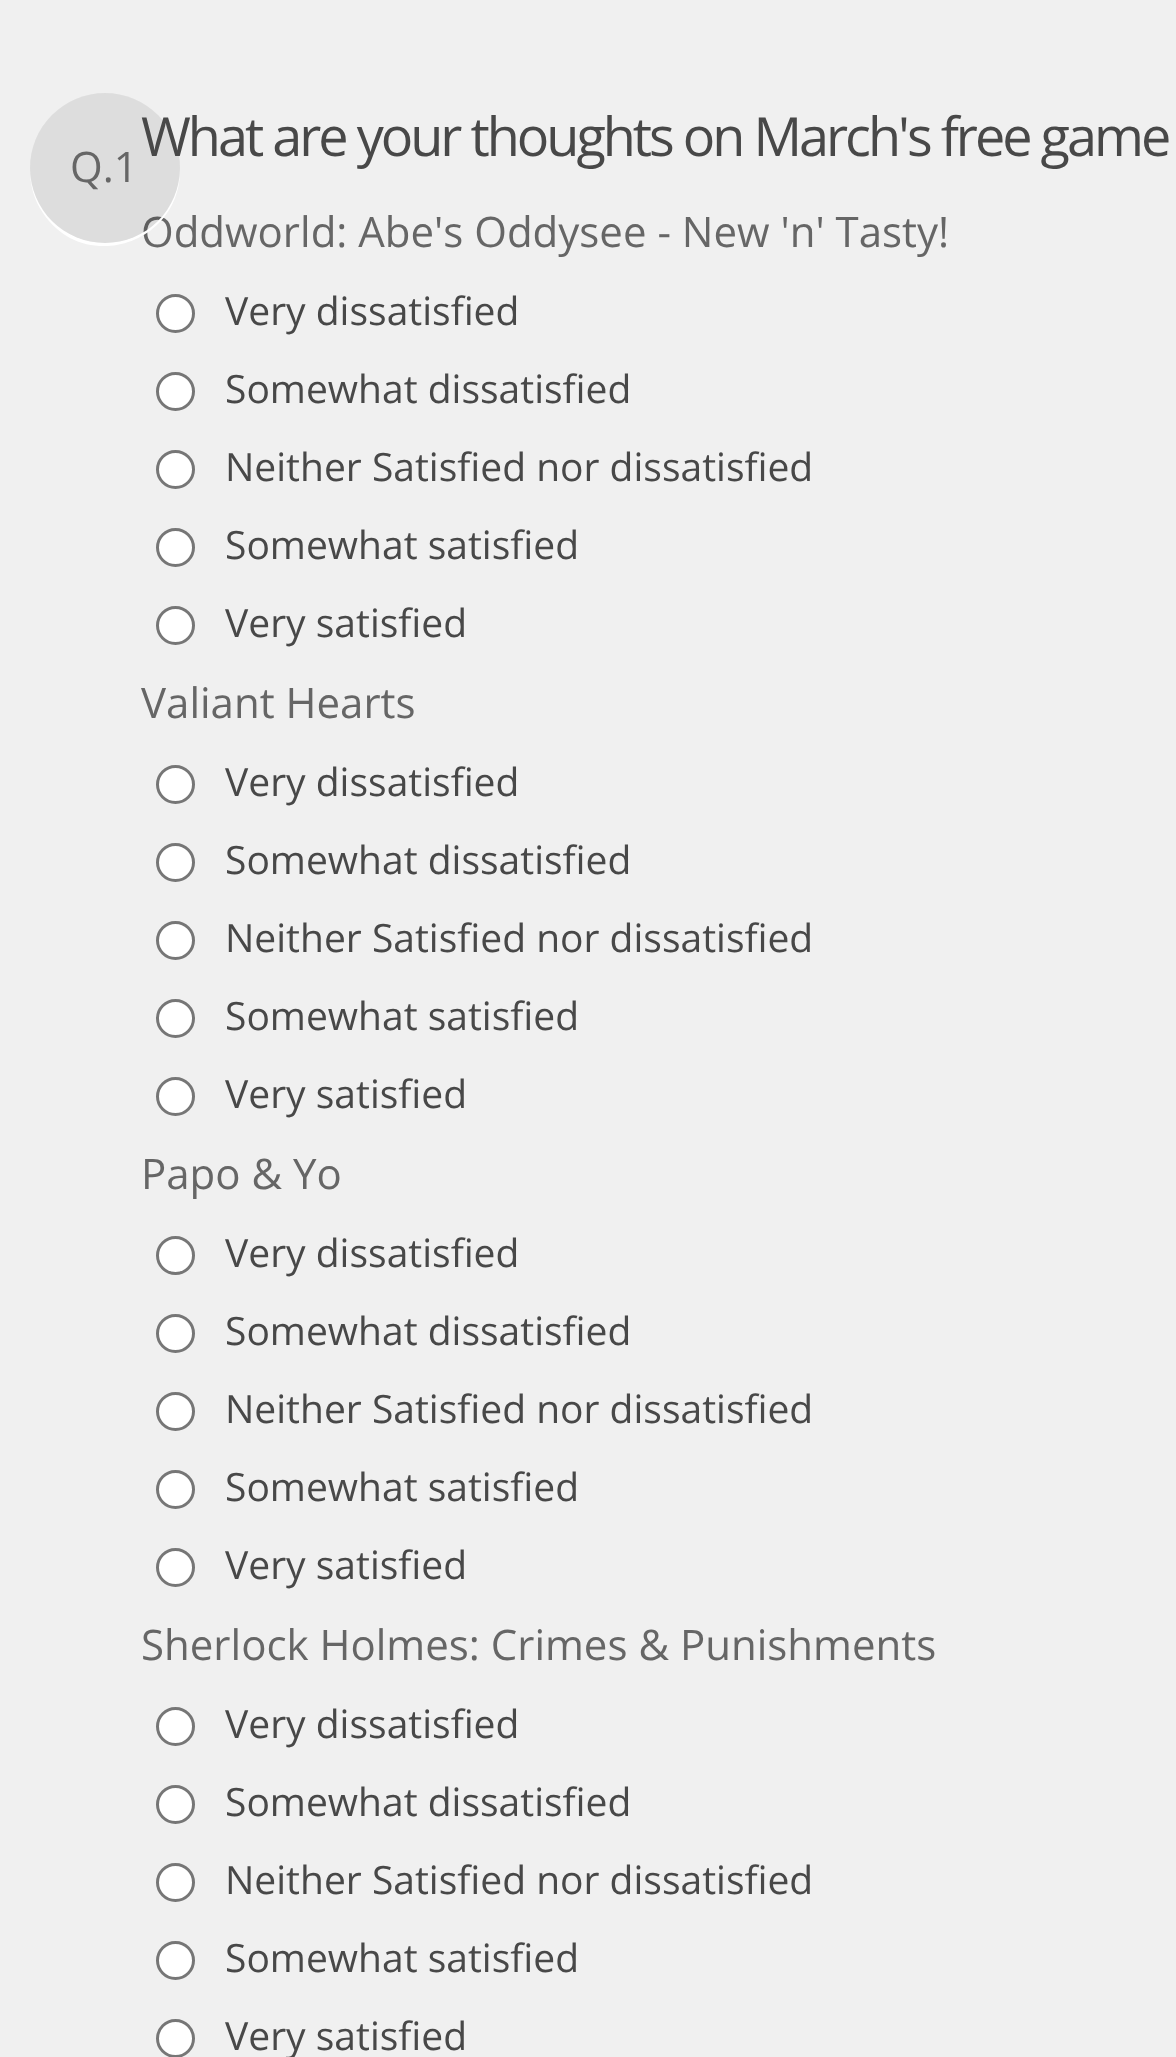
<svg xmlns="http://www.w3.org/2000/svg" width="1176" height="2057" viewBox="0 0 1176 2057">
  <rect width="100%" height="100%" fill="rgb(240,240,240)"/>
  <text x="141" y="247" font-family="Open Sans" font-size="42" fill="rgb(102,102,102)">Oddworld: Abe's Oddysee - New 'n' Tasty!</text>
  <path d="M30 169C30 185 34 200 43 213C84 275 181 244 180 169C179 210 146 243 105 243C64 243 31 210 30 169Z" fill="rgb(255,255,255)"/>
  <circle cx="105" cy="168" r="75" fill="rgba(0,0,0,0.08)"/>
  <text x="70" y="182" font-family="Open Sans" font-size="42" fill="rgb(102,102,102)">Q.1</text>
  <text x="141" y="156" font-family="Open Sans" font-size="54" letter-spacing="-3" fill="rgb(72,72,72)">What are your thoughts on March's free game</text>
  <circle cx="175.5" cy="313.5" r="18" fill="rgb(255,255,255)" stroke="rgb(118,118,118)" stroke-width="3"/>
  <text x="225" y="325" font-family="Open Sans" font-size="39" fill="rgb(72,72,72)">Very dissatisfied</text>
  <circle cx="175.5" cy="391.5" r="18" fill="rgb(255,255,255)" stroke="rgb(118,118,118)" stroke-width="3"/>
  <text x="225" y="403" font-family="Open Sans" font-size="39" fill="rgb(72,72,72)">Somewhat dissatisfied</text>
  <circle cx="175.5" cy="469.5" r="18" fill="rgb(255,255,255)" stroke="rgb(118,118,118)" stroke-width="3"/>
  <text x="225" y="481" font-family="Open Sans" font-size="39" fill="rgb(72,72,72)">Neither Satisfied nor dissatisfied</text>
  <circle cx="175.5" cy="547.5" r="18" fill="rgb(255,255,255)" stroke="rgb(118,118,118)" stroke-width="3"/>
  <text x="225" y="559" font-family="Open Sans" font-size="39" fill="rgb(72,72,72)">Somewhat satisfied</text>
  <circle cx="175.5" cy="625.5" r="18" fill="rgb(255,255,255)" stroke="rgb(118,118,118)" stroke-width="3"/>
  <text x="225" y="637" font-family="Open Sans" font-size="39" fill="rgb(72,72,72)">Very satisfied</text>
  <text x="141" y="718" font-family="Open Sans" font-size="42" fill="rgb(102,102,102)">Valiant Hearts</text>
  <circle cx="175.5" cy="784.5" r="18" fill="rgb(255,255,255)" stroke="rgb(118,118,118)" stroke-width="3"/>
  <text x="225" y="796" font-family="Open Sans" font-size="39" fill="rgb(72,72,72)">Very dissatisfied</text>
  <circle cx="175.5" cy="862.5" r="18" fill="rgb(255,255,255)" stroke="rgb(118,118,118)" stroke-width="3"/>
  <text x="225" y="874" font-family="Open Sans" font-size="39" fill="rgb(72,72,72)">Somewhat dissatisfied</text>
  <circle cx="175.5" cy="940.5" r="18" fill="rgb(255,255,255)" stroke="rgb(118,118,118)" stroke-width="3"/>
  <text x="225" y="952" font-family="Open Sans" font-size="39" fill="rgb(72,72,72)">Neither Satisfied nor dissatisfied</text>
  <circle cx="175.5" cy="1018.5" r="18" fill="rgb(255,255,255)" stroke="rgb(118,118,118)" stroke-width="3"/>
  <text x="225" y="1030" font-family="Open Sans" font-size="39" fill="rgb(72,72,72)">Somewhat satisfied</text>
  <circle cx="175.5" cy="1096.5" r="18" fill="rgb(255,255,255)" stroke="rgb(118,118,118)" stroke-width="3"/>
  <text x="225" y="1108" font-family="Open Sans" font-size="39" fill="rgb(72,72,72)">Very satisfied</text>
  <text x="141" y="1189" font-family="Open Sans" font-size="42" fill="rgb(102,102,102)">Papo &amp; Yo</text>
  <circle cx="175.5" cy="1255.5" r="18" fill="rgb(255,255,255)" stroke="rgb(118,118,118)" stroke-width="3"/>
  <text x="225" y="1267" font-family="Open Sans" font-size="39" fill="rgb(72,72,72)">Very dissatisfied</text>
  <circle cx="175.5" cy="1333.5" r="18" fill="rgb(255,255,255)" stroke="rgb(118,118,118)" stroke-width="3"/>
  <text x="225" y="1345" font-family="Open Sans" font-size="39" fill="rgb(72,72,72)">Somewhat dissatisfied</text>
  <circle cx="175.5" cy="1411.5" r="18" fill="rgb(255,255,255)" stroke="rgb(118,118,118)" stroke-width="3"/>
  <text x="225" y="1423" font-family="Open Sans" font-size="39" fill="rgb(72,72,72)">Neither Satisfied nor dissatisfied</text>
  <circle cx="175.5" cy="1489.5" r="18" fill="rgb(255,255,255)" stroke="rgb(118,118,118)" stroke-width="3"/>
  <text x="225" y="1501" font-family="Open Sans" font-size="39" fill="rgb(72,72,72)">Somewhat satisfied</text>
  <circle cx="175.5" cy="1567.5" r="18" fill="rgb(255,255,255)" stroke="rgb(118,118,118)" stroke-width="3"/>
  <text x="225" y="1579" font-family="Open Sans" font-size="39" fill="rgb(72,72,72)">Very satisfied</text>
  <text x="141" y="1660" font-family="Open Sans" font-size="42" fill="rgb(102,102,102)">Sherlock Holmes: Crimes &amp; Punishments</text>
  <circle cx="175.5" cy="1726.5" r="18" fill="rgb(255,255,255)" stroke="rgb(118,118,118)" stroke-width="3"/>
  <text x="225" y="1738" font-family="Open Sans" font-size="39" fill="rgb(72,72,72)">Very dissatisfied</text>
  <circle cx="175.5" cy="1804.5" r="18" fill="rgb(255,255,255)" stroke="rgb(118,118,118)" stroke-width="3"/>
  <text x="225" y="1816" font-family="Open Sans" font-size="39" fill="rgb(72,72,72)">Somewhat dissatisfied</text>
  <circle cx="175.5" cy="1882.5" r="18" fill="rgb(255,255,255)" stroke="rgb(118,118,118)" stroke-width="3"/>
  <text x="225" y="1894" font-family="Open Sans" font-size="39" fill="rgb(72,72,72)">Neither Satisfied nor dissatisfied</text>
  <circle cx="175.5" cy="1960.5" r="18" fill="rgb(255,255,255)" stroke="rgb(118,118,118)" stroke-width="3"/>
  <text x="225" y="1972" font-family="Open Sans" font-size="39" fill="rgb(72,72,72)">Somewhat satisfied</text>
  <circle cx="175.5" cy="2038.5" r="18" fill="rgb(255,255,255)" stroke="rgb(118,118,118)" stroke-width="3"/>
  <text x="225" y="2050" font-family="Open Sans" font-size="39" fill="rgb(72,72,72)">Very satisfied</text>
</svg>
